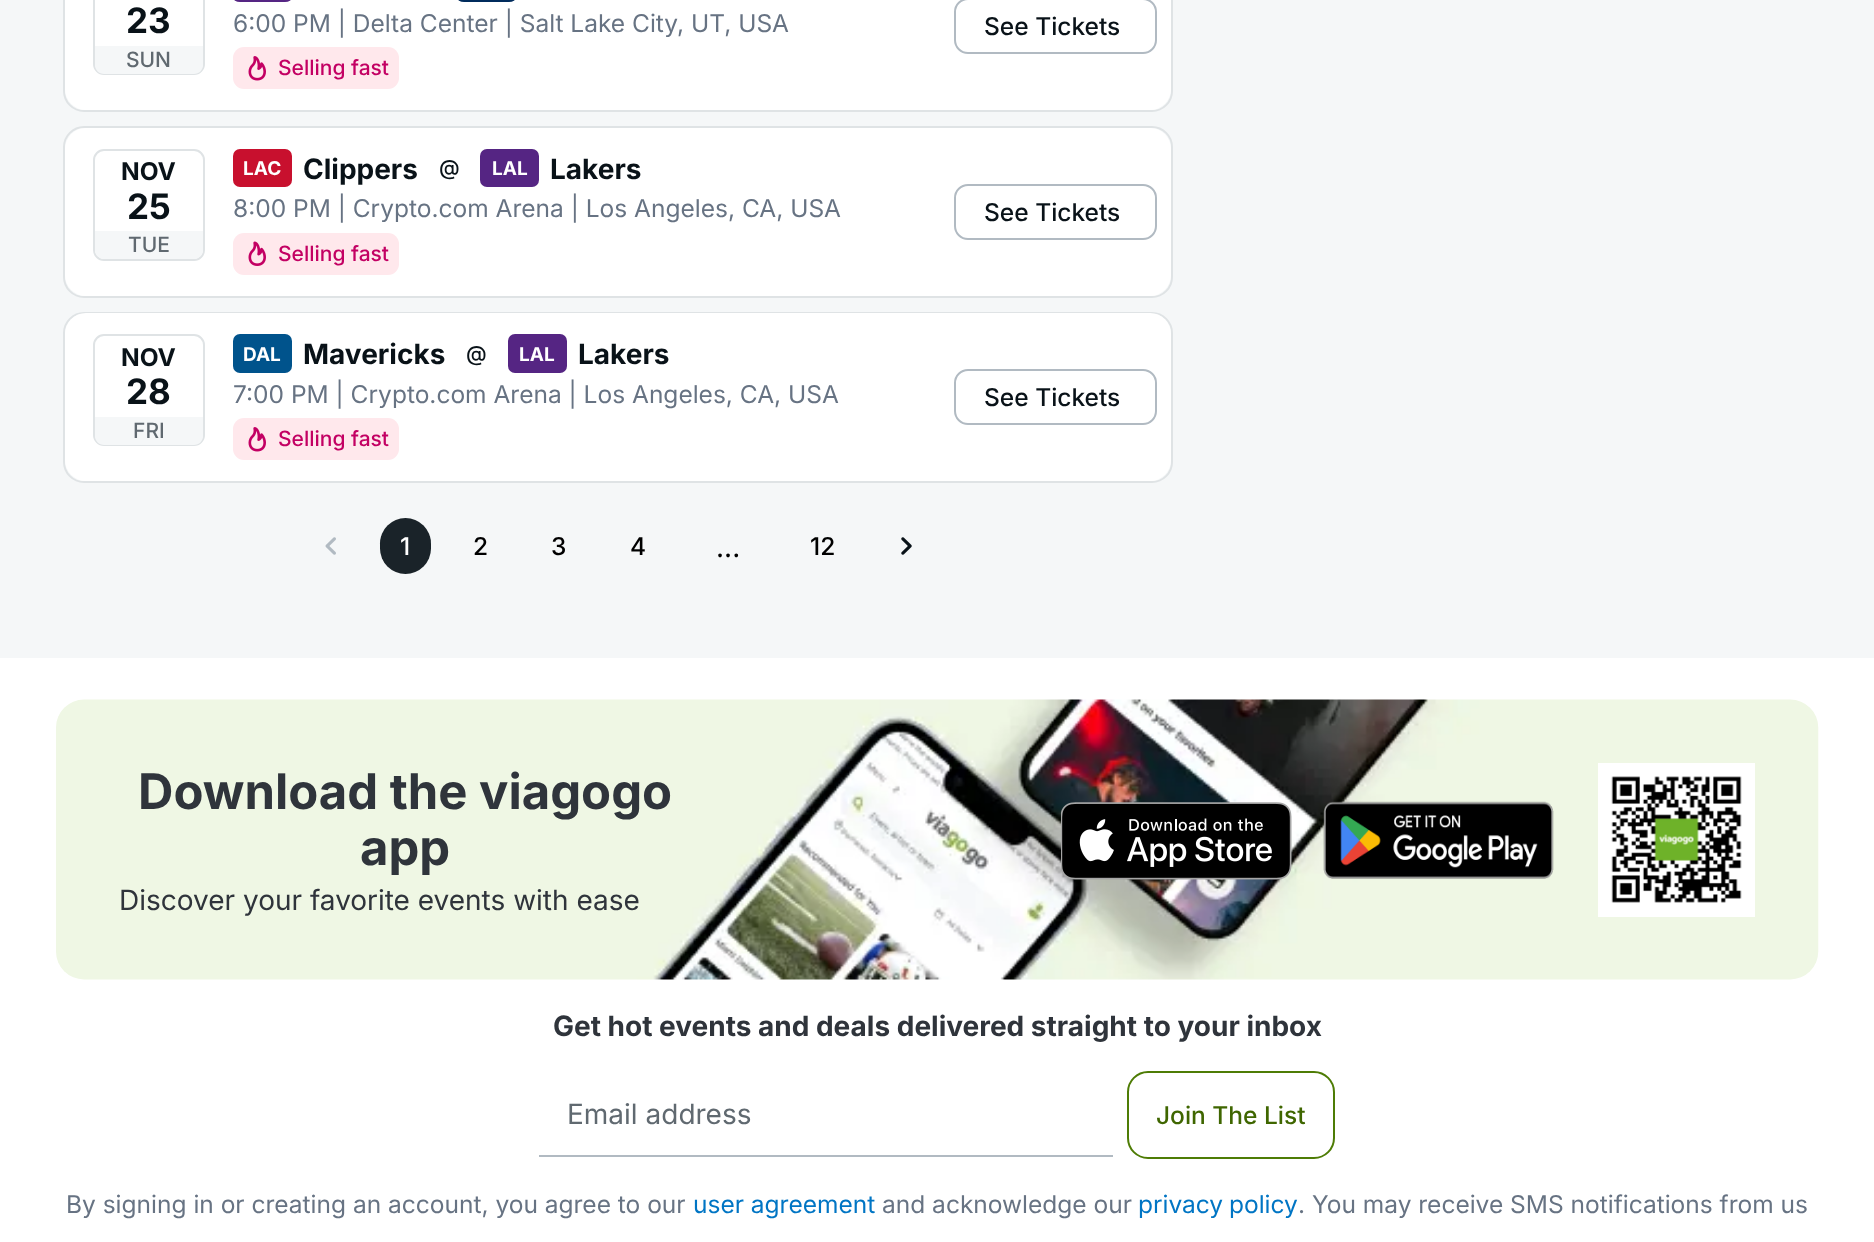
<svg xmlns="http://www.w3.org/2000/svg" width="1874" height="1242" viewBox="0 0 1874 1242">
  <rect width="100%" height="100%" fill="rgb(255,255,255)"/>
  <rect x="0" y="0" width="1874" height="658" fill="rgb(245,247,248)"/>
  <rect x="64" y="-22" width="1108" height="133" rx="20" fill="none" stroke="rgb(223,227,229)" stroke-width="2"/>
  <rect x="65" y="-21" width="1106" height="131" rx="21" fill="rgb(255,255,255)"/>
  <rect x="94" y="-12" width="110" height="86" rx="10" fill="none" stroke="rgb(223,227,229)" stroke-width="2"/>
  <text x="126" y="33" font-family="Inter" font-size="35" font-weight="bold" fill="rgb(9,18,24)">23</text>
  <path d="M95 46H203V65C203 70 199 74 194 74H104C99 74 95 70 95 65Z" fill="rgb(245,247,248)"/>
  <text x="126" y="67" font-family="Inter" font-size="21" font-weight="500" fill="rgb(96,105,112)">SUN</text>
  <rect x="233" y="-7" width="59" height="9" rx="7" fill="rgb(85,37,131)"/>
  <rect x="457" y="-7" width="59" height="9" rx="7" fill="rgb(0,43,92)"/>
  <text x="233" y="32" font-family="Inter" font-size="24.5" fill="rgb(103,115,131)">6:00 PM | Delta Center | Salt Lake City, UT, USA</text>
  <rect x="233" y="47" width="166" height="42" rx="11" fill="rgb(255,232,236)"/>
  <image x="248" y="56" width="18" height="25" href="pic1.png"/>
  <text x="278" y="75" font-family="Inter" font-size="21" font-weight="500" fill="rgb(195,0,99)">Selling fast</text>
  <rect x="955" y="-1" width="201" height="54" rx="13" fill="none" stroke="rgb(177,186,194)" stroke-width="2"/>
  <text x="984" y="35" font-family="Inter" font-size="24.5" font-weight="500" fill="rgb(9,18,24)">See Tickets</text>
  <rect x="64" y="127" width="1108" height="170" rx="20" fill="none" stroke="rgb(223,227,229)" stroke-width="2"/>
  <rect x="65" y="128" width="1106" height="168" rx="21" fill="rgb(255,255,255)"/>
  <rect x="94" y="150" width="110" height="110" rx="10" fill="none" stroke="rgb(223,227,229)" stroke-width="2"/>
  <text x="121" y="180" font-family="Inter" font-size="24.5" font-weight="bold" fill="rgb(9,18,24)">NOV</text>
  <text x="127" y="219" font-family="Inter" font-size="35" font-weight="bold" fill="rgb(9,18,24)">25</text>
  <path d="M95 231H203V250C203 255 199 259 194 259H104C99 259 95 255 95 250Z" fill="rgb(245,247,248)"/>
  <text x="128" y="252" font-family="Inter" font-size="21" font-weight="500" fill="rgb(96,105,112)">TUE</text>
  <rect x="233" y="149" width="59" height="38" rx="7" fill="rgb(200,16,46)"/>
  <text x="243" y="175" font-family="Inter" font-size="19" font-weight="bold" fill="rgb(255,255,255)">LAC</text>
  <text x="303" y="179" font-family="Inter" font-size="28" font-weight="bold" fill="rgb(9,18,24)">Clippers</text>
  <text x="439" y="175" font-family="Inter" font-size="21" font-weight="500" fill="rgb(9,18,24)">@</text>
  <rect x="480" y="149" width="59" height="38" rx="7" fill="rgb(85,37,131)"/>
  <text x="492" y="175" font-family="Inter" font-size="19" font-weight="bold" fill="rgb(255,255,255)">LAL</text>
  <text x="550" y="179" font-family="Inter" font-size="28" font-weight="bold" fill="rgb(9,18,24)">Lakers</text>
  <text x="233" y="217" font-family="Inter" font-size="24.5" fill="rgb(103,115,131)">8:00 PM | Crypto.com Arena | Los Angeles, CA, USA</text>
  <rect x="233" y="233" width="166" height="42" rx="11" fill="rgb(255,232,236)"/>
  <image x="248" y="241" width="18" height="25" href="pic2.png"/>
  <text x="278" y="261" font-family="Inter" font-size="21" font-weight="500" fill="rgb(195,0,99)">Selling fast</text>
  <rect x="955" y="185" width="201" height="54" rx="13" fill="none" stroke="rgb(177,186,194)" stroke-width="2"/>
  <text x="984" y="221" font-family="Inter" font-size="24.5" font-weight="500" fill="rgb(9,18,24)">See Tickets</text>
  <rect x="64" y="313" width="1108" height="169" rx="20" fill="none" stroke="rgb(223,227,229)" stroke-width="2"/>
  <rect x="65" y="313" width="1106" height="168" rx="21" fill="rgb(255,255,255)"/>
  <rect x="94" y="335" width="110" height="110" rx="10" fill="none" stroke="rgb(223,227,229)" stroke-width="2"/>
  <text x="121" y="366" font-family="Inter" font-size="24.5" font-weight="bold" fill="rgb(9,18,24)">NOV</text>
  <text x="126" y="404" font-family="Inter" font-size="35" font-weight="bold" fill="rgb(9,18,24)">28</text>
  <path d="M95 417H203V436C203 441 199 445 194 445H104C99 445 95 441 95 436Z" fill="rgb(245,247,248)"/>
  <text x="133" y="438" font-family="Inter" font-size="21" font-weight="500" fill="rgb(96,105,112)">FRI</text>
  <rect x="233" y="334" width="59" height="39" rx="7" fill="rgb(0,83,140)"/>
  <text x="243" y="361" font-family="Inter" font-size="19" font-weight="bold" fill="rgb(255,255,255)">DAL</text>
  <text x="303" y="364" font-family="Inter" font-size="28" font-weight="bold" fill="rgb(9,18,24)">Mavericks</text>
  <text x="466" y="361" font-family="Inter" font-size="21" font-weight="500" fill="rgb(9,18,24)">@</text>
  <rect x="508" y="334" width="59" height="39" rx="7" fill="rgb(85,37,131)"/>
  <text x="519" y="361" font-family="Inter" font-size="19" font-weight="bold" fill="rgb(255,255,255)">LAL</text>
  <text x="578" y="364" font-family="Inter" font-size="28" font-weight="bold" fill="rgb(9,18,24)">Lakers</text>
  <text x="233" y="403" font-family="Inter" font-size="24.5" fill="rgb(103,115,131)">7:00 PM | Crypto.com Arena | Los Angeles, CA, USA</text>
  <rect x="233" y="418" width="166" height="42" rx="11" fill="rgb(255,232,236)"/>
  <image x="248" y="427" width="18" height="25" href="pic1.png"/>
  <text x="278" y="446" font-family="Inter" font-size="21" font-weight="500" fill="rgb(195,0,99)">Selling fast</text>
  <rect x="955" y="370" width="201" height="54" rx="13" fill="none" stroke="rgb(177,186,194)" stroke-width="2"/>
  <text x="984" y="406" font-family="Inter" font-size="24.5" font-weight="500" fill="rgb(9,18,24)">See Tickets</text>
  <image x="325" y="537" width="11" height="18" href="pic3.png"/>
  <rect x="380" y="518" width="51" height="56" rx="25.5" fill="rgb(26,35,41)"/>
  <text x="400" y="555" font-family="Inter" font-size="24.5" font-weight="500" fill="rgb(255,255,255)">1</text>
  <g font-family="Inter" font-size="24.5" font-weight="500" fill="rgb(0,0,0)">
    <text x="473" y="555">2</text>
    <text x="551" y="555">3</text>
    <text x="630" y="555">4</text>
    <text x="810" y="555">12</text>
  </g>
  <image x="901" y="537" width="11" height="18" href="pic4.png"/>
  <text x="716" y="557" font-family="Inter" font-size="28" fill="rgb(0,0,0)">...</text>
  <image x="56" y="699" width="1763" height="281" href="pic5.png"/>
  <g font-family="Inter" font-size="49" font-weight="bold" fill="rgb(47,52,59)">
    <text x="138" y="809">Download the viagogo</text>
    <text x="360" y="865">app</text>
  </g>
  <text x="119" y="910" font-family="Inter" font-size="28" fill="rgb(47,52,59)">Discover your favorite events with ease</text>
  <image x="1061" y="802" width="231" height="78" href="pic6.png"/>
  <image x="1323" y="801" width="231" height="78" href="pic7.png"/>
  <rect x="1598" y="763" width="157" height="154" fill="rgb(255,255,255)"/>
  <image x="1611" y="776" width="131" height="127" href="pic8.png"/>
  <text x="553" y="1036" font-family="Inter" font-size="28" font-weight="bold" fill="rgb(47,52,59)">Get hot events and deals delivered straight to your inbox</text>
  <rect x="539" y="1155" width="574" height="2" fill="rgb(177,186,194)"/>
  <text x="567" y="1124" font-family="Inter" font-size="28" fill="rgb(96,105,112)">Email address</text>
  <rect x="1128" y="1072" width="206" height="86" rx="20" fill="none" stroke="rgb(78,124,5)" stroke-width="2"/>
  <text x="1156" y="1124" font-family="Inter" font-size="24.5" font-weight="500" fill="rgb(63,102,0)">Join The List</text>
  <text x="66" y="1213" font-family="Inter" font-size="24.5" fill="rgb(103,115,131)">By signing in or creating an account, you agree to our</text>
  <text x="693" y="1213" font-family="Inter" font-size="24.5" fill="rgb(0,117,196)">user agreement</text>
  <text x="882" y="1213" font-family="Inter" font-size="24.5" fill="rgb(103,115,131)">and acknowledge our</text>
  <text x="1138" y="1213" word-spacing="-1" font-family="Inter" font-size="24.5" fill="rgb(0,117,196)">privacy policy</text>
  <text x="1298" y="1213" font-family="Inter" font-size="24.5" fill="rgb(103,115,131)">. You may receive SMS notifications from us</text>
</svg>
